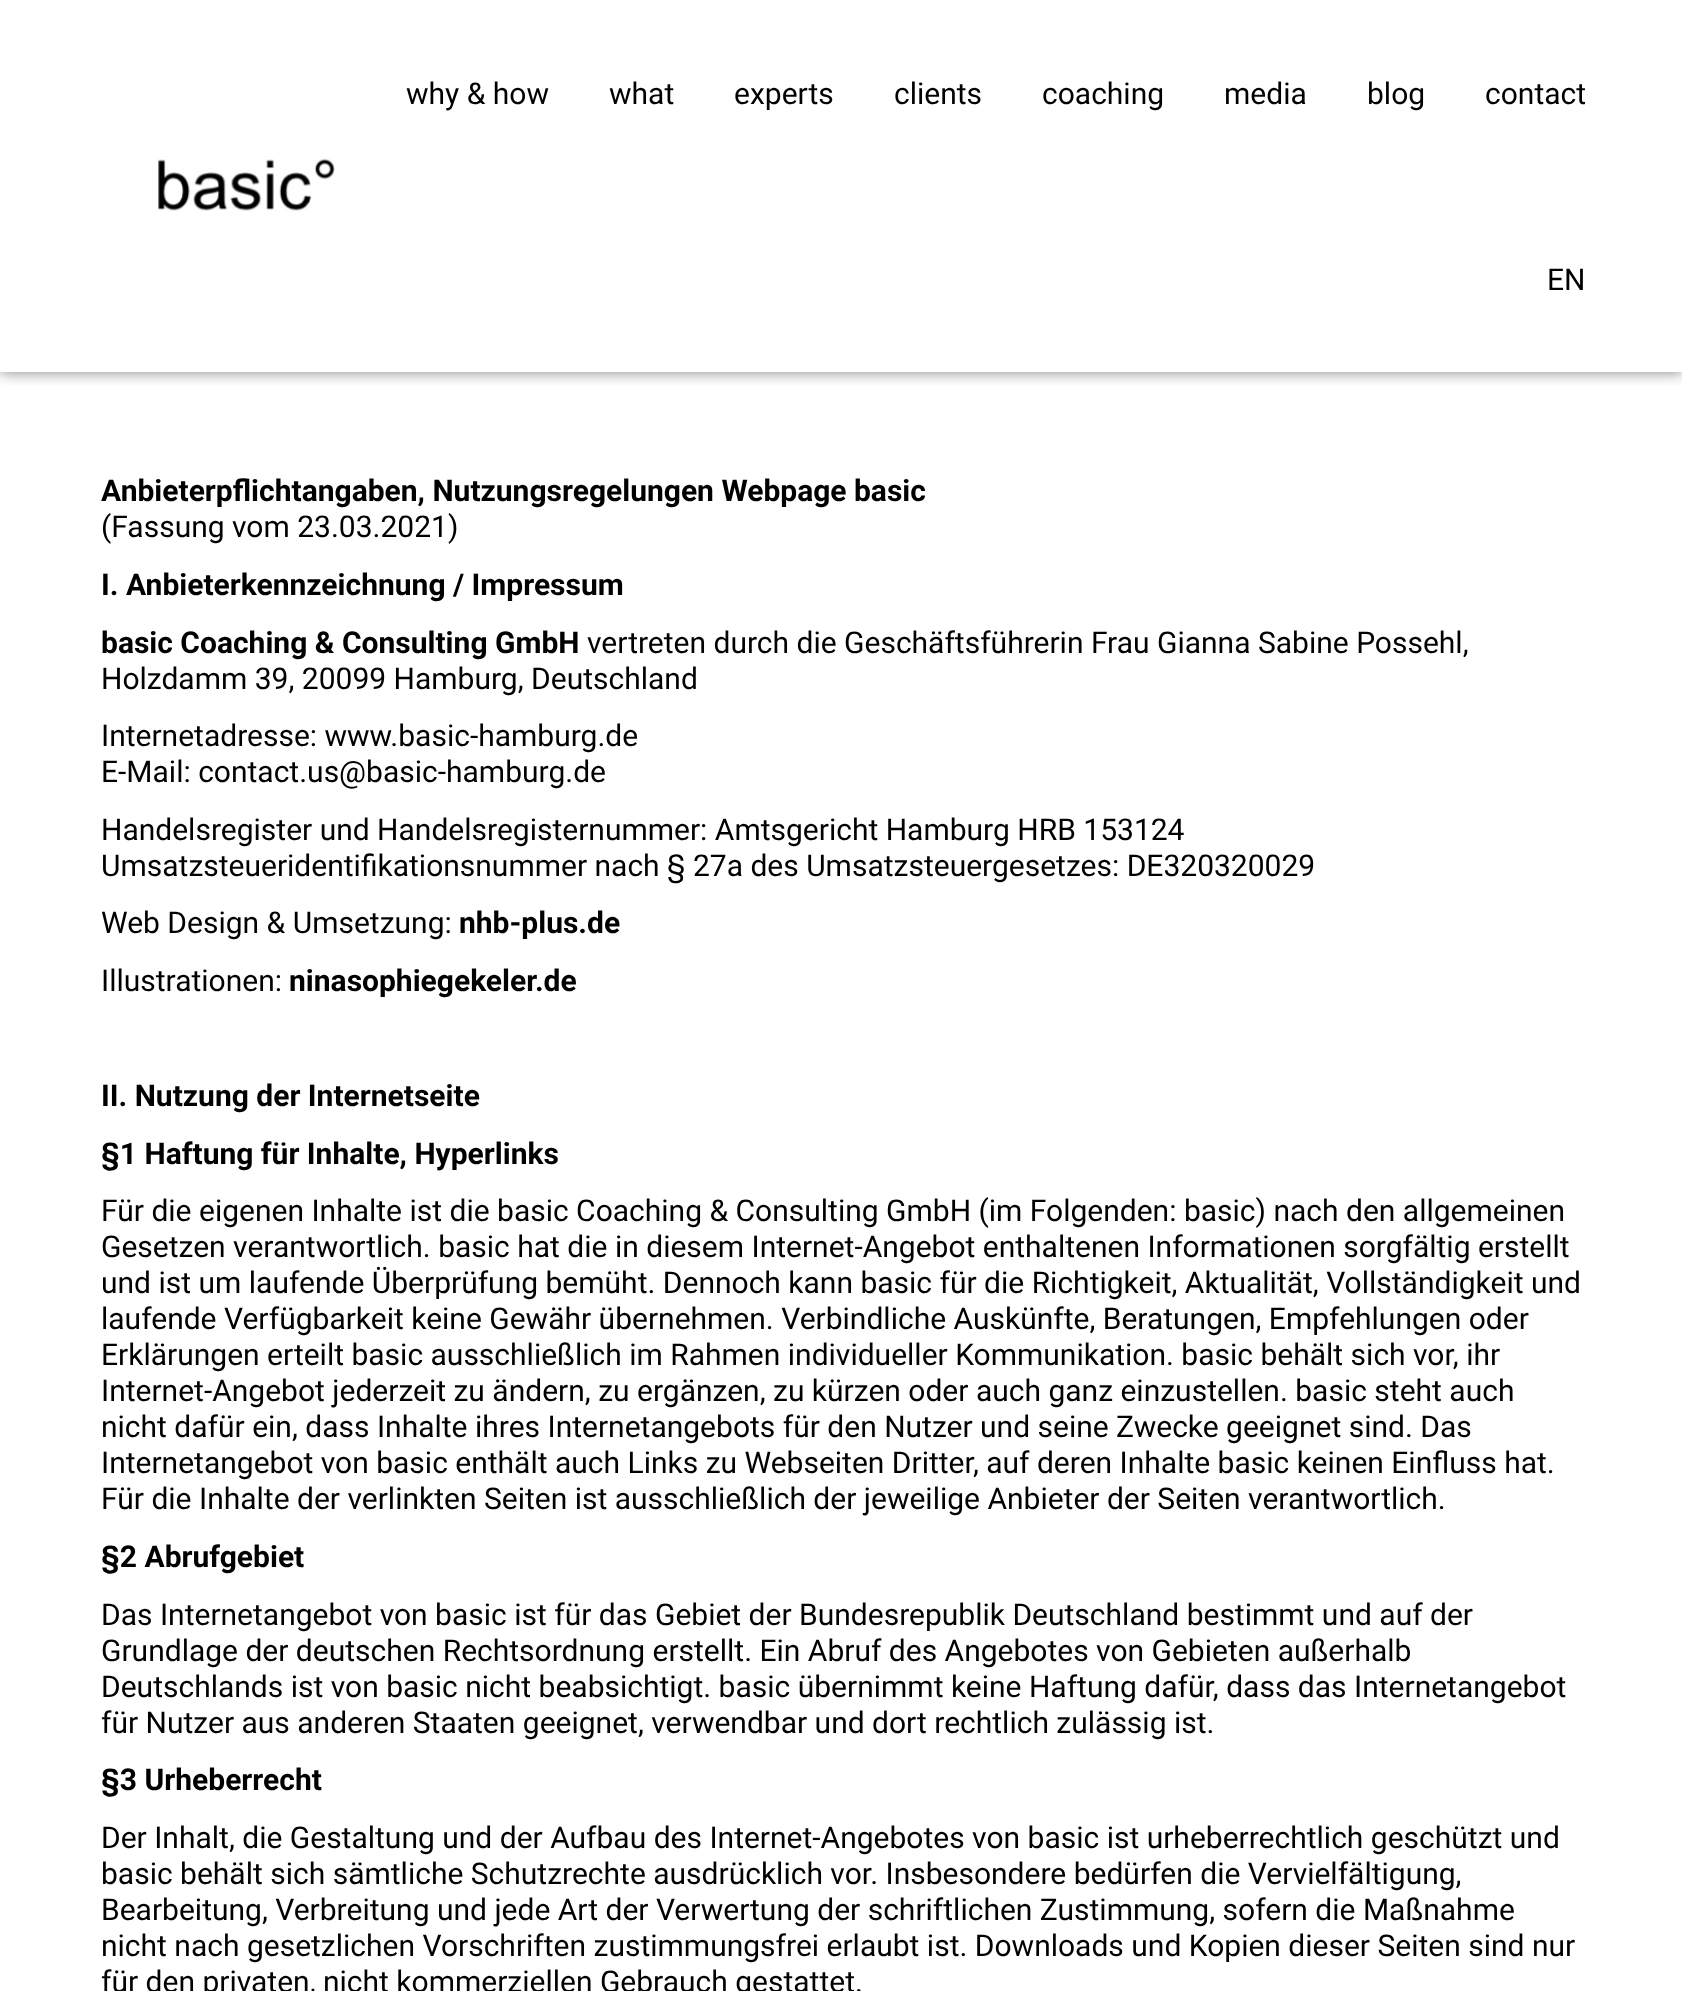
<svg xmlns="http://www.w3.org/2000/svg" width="1682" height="1991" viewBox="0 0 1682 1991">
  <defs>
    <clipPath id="clip1"><rect x="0" y="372" width="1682" height="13"/></clipPath>
  </defs>
  <rect width="100%" height="100%" fill="rgb(255,255,255)"/>
  <g clip-path="url(#clip1)">
    <rect x="0" y="0" width="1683" height="372" fill="rgba(0,0,0,0.5)" filter="blur(7.5px)"/>
  </g>
  <image x="158" y="158" width="177" height="53" href="pic1.png"/>
  <g font-family="Roboto" font-size="30" fill="rgb(0,0,0)">
    <text x="406" y="104">why &amp; how</text>
    <text x="609" y="104">what</text>
    <text x="734" y="104">experts</text>
    <text x="894" y="104">clients</text>
    <text x="1042" y="104">coaching</text>
    <text x="1224" y="104">media</text>
    <text x="1367" y="104">blog</text>
    <text x="1485" y="104">contact</text>
    <text x="1547" y="290">EN</text>
  </g>
  <text x="101" y="501" font-family="Roboto" font-size="30" font-weight="bold" fill="rgb(0,0,0)">Anbieterpflichtangaben, Nutzungsregelungen Webpage basic</text>
  <text x="101" y="537" font-family="Roboto" font-size="30" fill="rgb(0,0,0)">(Fassung vom 23.03.2021)</text>
  <g font-family="Roboto" font-size="30" font-weight="bold" fill="rgb(0,0,0)">
    <text>
      <tspan x="101" y="595">I. Anbieterkennzeichnung / Impressum</tspan>
      <tspan x="101" y="653">basic Coaching &amp; Consulting GmbH</tspan>
    </text>
  </g>
  <g font-family="Roboto" font-size="30" fill="rgb(0,0,0)">
    <text x="587" y="653">vertreten durch die Geschäftsführerin Frau Gianna Sabine Possehl,</text>
    <text>
      <tspan x="101" y="689">Holzdamm 39, 20099 Hamburg, Deutschland</tspan>
      <tspan x="101" y="746">Internetadresse: www.basic-hamburg.de</tspan>
      <tspan x="101" y="782">E-Mail: contact.us@basic-hamburg.de</tspan>
      <tspan x="101" y="840">Handelsregister und Handelsregisternummer: Amtsgericht Hamburg HRB 153124</tspan>
      <tspan x="101" y="876">Umsatzsteueridentifikationsnummer nach § 27a des Umsatzsteuergesetzes: DE320320029</tspan>
      <tspan x="101" y="933">Web Design &amp; Umsetzung:</tspan>
    </text>
  </g>
  <text x="459" y="933" font-family="Roboto" font-size="30" font-weight="bold" fill="rgb(0,0,0)">nhb-plus.de</text>
  <text x="101" y="991" font-family="Roboto" font-size="30" fill="rgb(0,0,0)">Illustrationen:</text>
  <g font-family="Roboto" font-size="30" font-weight="bold" fill="rgb(0,0,0)">
    <text x="289" y="991">ninasophiegekeler.de</text>
    <text>
      <tspan x="101" y="1106">II. Nutzung der Internetseite</tspan>
      <tspan x="101" y="1164">§1 Haftung für Inhalte, Hyperlinks</tspan>
    </text>
  </g>
  <g font-family="Roboto" font-size="30" fill="rgb(0,0,0)">
    <text>
      <tspan x="101" y="1221">Für die eigenen Inhalte ist die basic Coaching &amp; Consulting GmbH (im Folgenden: basic) nach den allgemeinen</tspan>
      <tspan x="101" y="1257">Gesetzen verantwortlich. basic hat die in diesem Internet-Angebot enthaltenen Informationen sorgfältig erstellt</tspan>
      <tspan x="101" y="1293">und ist um laufende Überprüfung bemüht. Dennoch kann basic für die Richtigkeit, Aktualität, Vollständigkeit und</tspan>
      <tspan x="101" y="1329">laufende Verfügbarkeit keine Gewähr übernehmen. Verbindliche Auskünfte, Beratungen, Empfehlungen oder</tspan>
      <tspan x="101" y="1365">Erklärungen erteilt basic ausschließlich im Rahmen individueller Kommunikation. basic behält sich vor, ihr</tspan>
      <tspan x="101" y="1401">Internet-Angebot jederzeit zu ändern, zu ergänzen, zu kürzen oder auch ganz einzustellen. basic steht auch</tspan>
      <tspan x="101" y="1437">nicht dafür ein, dass Inhalte ihres Internetangebots für den Nutzer und seine Zwecke geeignet sind. Das</tspan>
      <tspan x="101" y="1473">Internetangebot von basic enthält auch Links zu Webseiten Dritter, auf deren Inhalte basic keinen Einfluss hat.</tspan>
      <tspan x="101" y="1509">Für die Inhalte der verlinkten Seiten ist ausschließlich der jeweilige Anbieter der Seiten verantwortlich.</tspan>
    </text>
  </g>
  <text x="101" y="1567" font-family="Roboto" font-size="30" font-weight="bold" fill="rgb(0,0,0)">§2 Abrufgebiet</text>
  <g font-family="Roboto" font-size="30" fill="rgb(0,0,0)">
    <text>
      <tspan x="101" y="1625">Das Internetangebot von basic ist für das Gebiet der Bundesrepublik Deutschland bestimmt und auf der</tspan>
      <tspan x="101" y="1661">Grundlage der deutschen Rechtsordnung erstellt. Ein Abruf des Angebotes von Gebieten außerhalb</tspan>
      <tspan x="101" y="1697">Deutschlands ist von basic nicht beabsichtigt. basic übernimmt keine Haftung dafür, dass das Internetangebot</tspan>
      <tspan x="101" y="1733">für Nutzer aus anderen Staaten geeignet, verwendbar und dort rechtlich zulässig ist.</tspan>
    </text>
  </g>
  <text x="101" y="1790" font-family="Roboto" font-size="30" font-weight="bold" fill="rgb(0,0,0)">§3 Urheberrecht</text>
  <g font-family="Roboto" font-size="30" fill="rgb(0,0,0)">
    <text>
      <tspan x="101" y="1848">Der Inhalt, die Gestaltung und der Aufbau des Internet-Angebotes von basic ist urheberrechtlich geschützt und</tspan>
      <tspan x="101" y="1884">basic behält sich sämtliche Schutzrechte ausdrücklich vor. Insbesondere bedürfen die Vervielfältigung,</tspan>
      <tspan x="101" y="1920">Bearbeitung, Verbreitung und jede Art der Verwertung der schriftlichen Zustimmung, sofern die Maßnahme</tspan>
      <tspan x="101" y="1956">nicht nach gesetzlichen Vorschriften zustimmungsfrei erlaubt ist. Downloads und Kopien dieser Seiten sind nur</tspan>
      <tspan x="101" y="1992">für den privaten, nicht kommerziellen Gebrauch gestattet.</tspan>
    </text>
  </g>
</svg>
